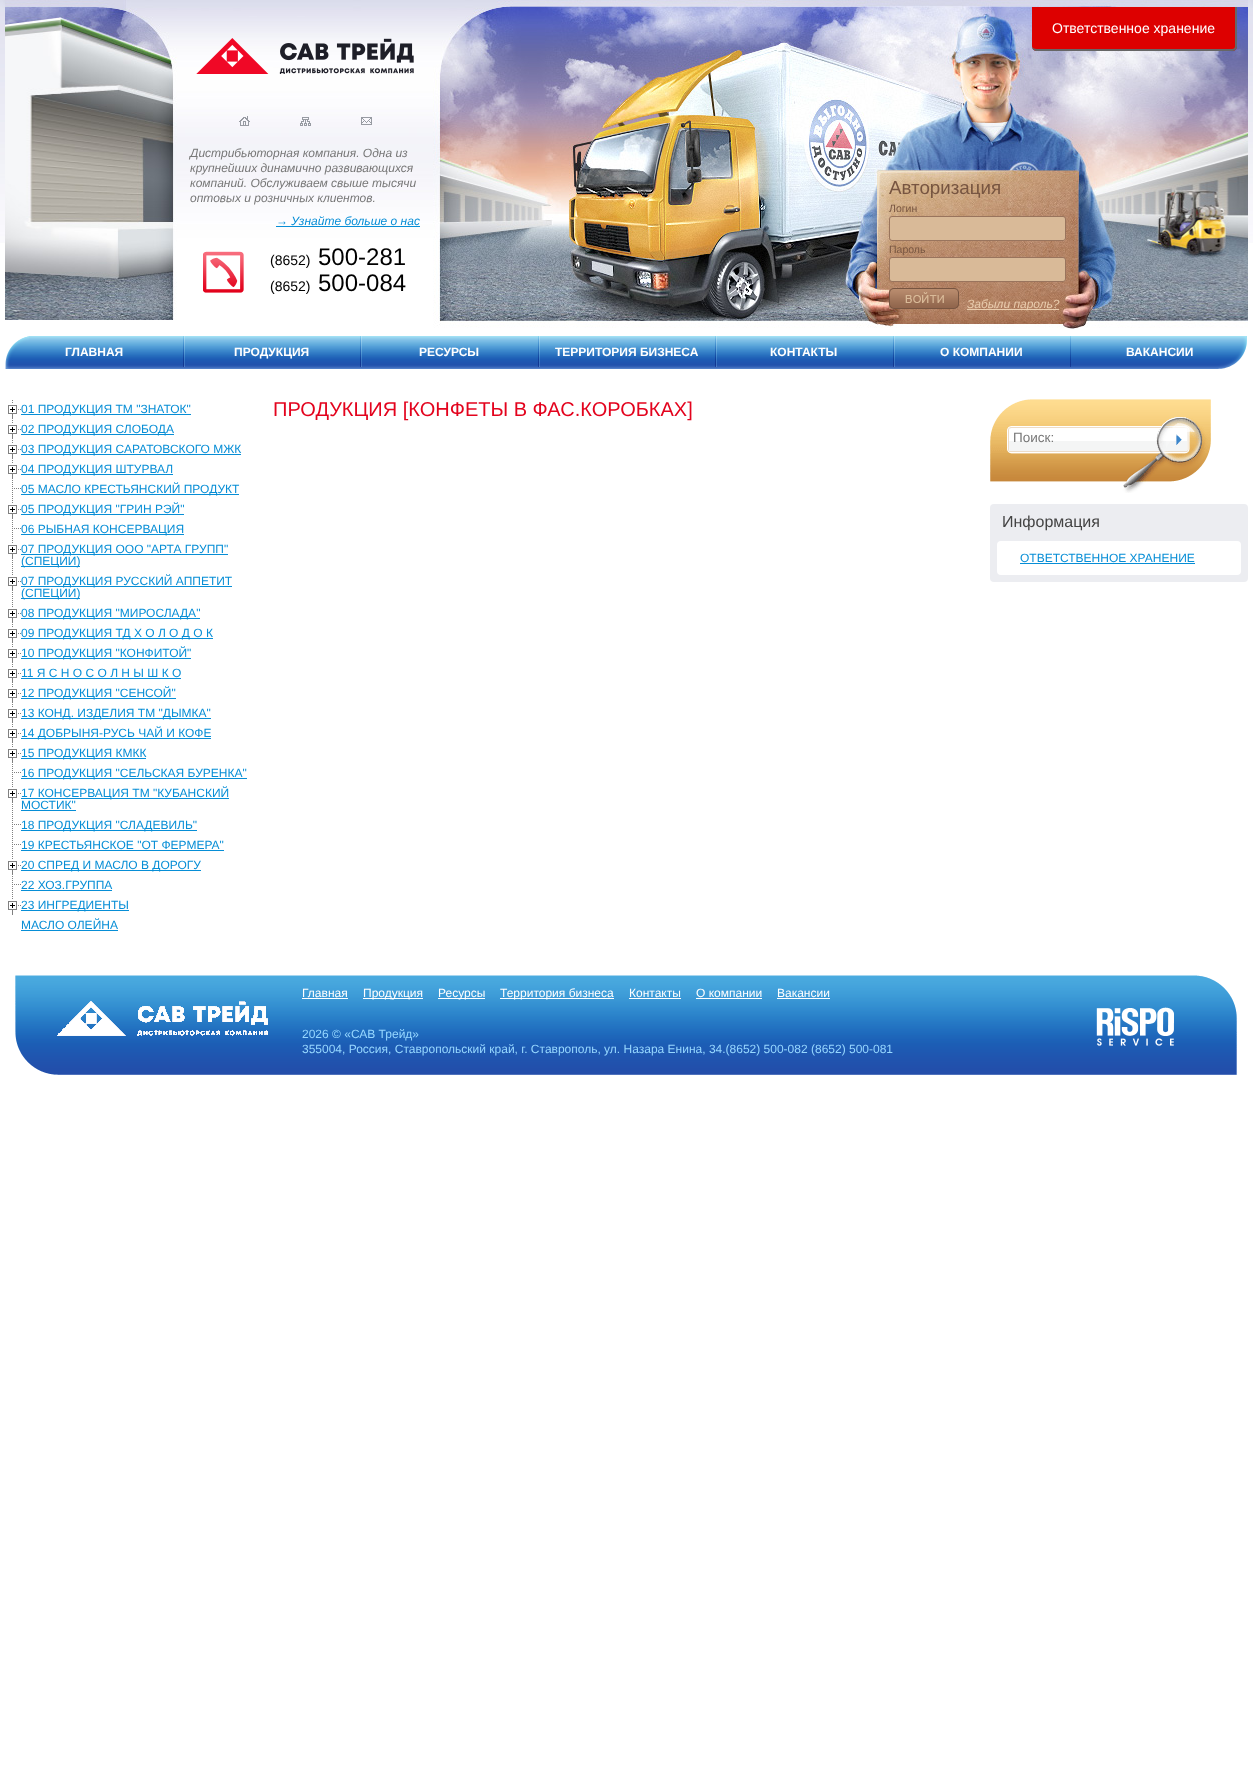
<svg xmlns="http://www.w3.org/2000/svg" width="1253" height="1788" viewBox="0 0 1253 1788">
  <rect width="100%" height="100%" fill="rgb(255,255,255)"/>
  <image x="0" y="0" width="1253" height="243" href="pic1.png"/>
  <image x="137" y="0" width="980" height="329" href="pic3.png"/>
  <image x="1117" y="0" width="131" height="328" href="pic10.png"/>
  <path d="M1032 7H1237V46C1237 49 1235 51 1232 51H1037C1034 51 1032 49 1032 46Z" fill="rgb(221,0,0)"/>
  <path d="M1032 7H1237V46C1237 49 1235 51 1232 51H1037C1034 51 1032 49 1032 46ZM1032 7H1235V46C1235 48 1234 49 1232 49H1037C1034 49 1032 48 1032 46Z" fill="rgb(102,102,102)" fill-rule="evenodd"/>
  <text x="1052" y="33" font-family="Liberation Sans" font-size="14" fill="rgb(255,255,255)">Ответственное хранение</text>
  <image x="5" y="0" width="132" height="320" href="pic2.png"/>
  <image x="196" y="38" width="218" height="36" href="pic4.png"/>
  <image x="239" y="116" width="11" height="10" href="pic5.png"/>
  <image x="300" y="117" width="11" height="9" href="pic6.png"/>
  <image x="361" y="117" width="11" height="8" href="pic7.png"/>
  <g font-family="Liberation Sans" font-size="12" font-style="italic" fill="rgb(119,119,119)">
    <text>
      <tspan x="190" y="157">Дистрибьюторная компания. Одна из</tspan>
      <tspan x="190" y="172">крупнейших динамично развивающихся</tspan>
      <tspan x="190" y="187">компаний. Обслуживаем свыше тысячи</tspan>
      <tspan x="190" y="202">оптовых и розничных клиентов.</tspan>
    </text>
  </g>
  <text x="276" y="225" font-family="Liberation Sans" font-size="12" font-style="italic" fill="rgb(7,142,214)">→ Узнайте больше о нас</text>
  <rect x="276" y="226" width="144" height="1" fill="rgb(7,142,214)"/>
  <image x="203" y="251" width="41" height="42" href="pic8.png"/>
  <text x="270" y="265" font-family="Liberation Sans" font-size="14" fill="rgb(0,0,0)">(8652)</text>
  <text x="318" y="265" font-family="Liberation Sans" font-size="24" fill="rgb(0,0,0)">500-281</text>
  <text x="270" y="291" font-family="Liberation Sans" font-size="14" fill="rgb(0,0,0)">(8652)</text>
  <text x="318" y="291" font-family="Liberation Sans" font-size="24" fill="rgb(0,0,0)">500-084</text>
  <text x="889" y="194" font-family="Liberation Sans" font-size="18.75" fill="rgb(119,85,65)">Авторизация</text>
  <text x="889" y="212" font-family="Liberation Sans" font-size="10.5" fill="rgb(119,85,65)">Логин</text>
  <rect x="889.5" y="216.5" width="176" height="24" rx="2.5" fill="rgb(217,186,152)" stroke="rgb(153,116,93)"/>
  <text x="889" y="253" font-family="Liberation Sans" font-size="10.5" fill="rgb(119,85,65)">Пароль</text>
  <rect x="889.5" y="257.5" width="176" height="24" rx="2.5" fill="rgb(217,186,152)" stroke="rgb(153,116,93)"/>
  <image x="889" y="288" width="70" height="21" href="pic9.png"/>
  <rect x="967" y="309" width="92" height="1" fill="rgb(233,204,173)"/>
  <text x="967" y="308" font-family="Liberation Sans" font-size="12" font-style="italic" fill="rgb(233,204,173)">Забыли пароль?</text>
  <image x="29" y="336" width="1042" height="33" href="pic11.png"/>
  <image x="5" y="336" width="24" height="33" href="pic12.png"/>
  <text x="65" y="356" font-family="Liberation Sans" font-size="12" font-weight="bold" fill="rgb(255,255,255)">ГЛАВНАЯ</text>
  <image x="183" y="336" width="2" height="31" href="pic13.png"/>
  <text x="234" y="356" font-family="Liberation Sans" font-size="12" font-weight="bold" fill="rgb(255,255,255)">ПРОДУКЦИЯ</text>
  <image x="360" y="336" width="2" height="31" href="pic13.png"/>
  <text x="419" y="356" font-family="Liberation Sans" font-size="12" font-weight="bold" fill="rgb(255,255,255)">РЕСУРСЫ</text>
  <image x="538" y="336" width="2" height="31" href="pic13.png"/>
  <text x="555" y="356" font-family="Liberation Sans" font-size="12" font-weight="bold" fill="rgb(255,255,255)">ТЕРРИТОРИЯ БИЗНЕСА</text>
  <image x="715" y="336" width="2" height="31" href="pic13.png"/>
  <text x="770" y="356" font-family="Liberation Sans" font-size="12" font-weight="bold" fill="rgb(255,255,255)">КОНТАКТЫ</text>
  <image x="893" y="336" width="2" height="31" href="pic13.png"/>
  <text x="940" y="356" font-family="Liberation Sans" font-size="12" font-weight="bold" fill="rgb(255,255,255)">О КОМПАНИИ</text>
  <image x="1070" y="336" width="1" height="31" href="pic14.png"/>
  <image x="1071" y="336" width="177" height="33" href="pic15.png"/>
  <text x="1126" y="356" font-family="Liberation Sans" font-size="12" font-weight="bold" fill="rgb(255,255,255)">ВАКАНСИИ</text>
  <image x="12" y="400" width="1" height="19" href="pic16.png"/>
  <image x="8" y="405" width="13" height="13" href="pic17.png"/>
  <rect x="21" y="414" width="170" height="1" fill="rgb(7,142,214)"/>
  <text x="21" y="413" font-family="Liberation Sans" font-size="12" fill="rgb(7,142,214)">01 ПРОДУКЦИЯ ТМ "ЗНАТОК"</text>
  <image x="12" y="420" width="1" height="19" href="pic16.png"/>
  <image x="8" y="425" width="13" height="13" href="pic17.png"/>
  <rect x="21" y="434" width="153" height="1" fill="rgb(7,142,214)"/>
  <text x="21" y="433" font-family="Liberation Sans" font-size="12" fill="rgb(7,142,214)">02 ПРОДУКЦИЯ СЛОБОДА</text>
  <image x="12" y="440" width="1" height="19" href="pic16.png"/>
  <image x="8" y="445" width="13" height="13" href="pic17.png"/>
  <rect x="21" y="454" width="220" height="1" fill="rgb(7,142,214)"/>
  <text x="21" y="453" font-family="Liberation Sans" font-size="12" fill="rgb(7,142,214)">03 ПРОДУКЦИЯ САРАТОВСКОГО МЖК</text>
  <image x="12" y="460" width="1" height="19" href="pic16.png"/>
  <image x="8" y="465" width="13" height="13" href="pic17.png"/>
  <rect x="21" y="474" width="152" height="1" fill="rgb(7,142,214)"/>
  <text x="21" y="473" font-family="Liberation Sans" font-size="12" fill="rgb(7,142,214)">04 ПРОДУКЦИЯ ШТУРВАЛ</text>
  <image x="12" y="480" width="9" height="19" href="pic18.png"/>
  <rect x="21" y="494" width="218" height="1" fill="rgb(7,142,214)"/>
  <text x="21" y="493" font-family="Liberation Sans" font-size="12" fill="rgb(7,142,214)">05 МАСЛО КРЕСТЬЯНСКИЙ ПРОДУКТ</text>
  <image x="12" y="500" width="1" height="19" href="pic16.png"/>
  <image x="8" y="505" width="13" height="13" href="pic17.png"/>
  <rect x="21" y="514" width="163" height="1" fill="rgb(7,142,214)"/>
  <text x="21" y="513" font-family="Liberation Sans" font-size="12" fill="rgb(7,142,214)">05 ПРОДУКЦИЯ "ГРИН РЭЙ"</text>
  <image x="12" y="520" width="9" height="19" href="pic18.png"/>
  <rect x="21" y="534" width="163" height="1" fill="rgb(7,142,214)"/>
  <text x="21" y="533" font-family="Liberation Sans" font-size="12" fill="rgb(7,142,214)">06 РЫБНАЯ КОНСЕРВАЦИЯ</text>
  <image x="12" y="540" width="1" height="31" href="pic19.png"/>
  <image x="8" y="545" width="13" height="13" href="pic17.png"/>
  <rect x="21" y="554" width="207" height="1" fill="rgb(7,142,214)"/>
  <text x="21" y="553" font-family="Liberation Sans" font-size="12" fill="rgb(7,142,214)">07 ПРОДУКЦИЯ ООО "АРТА ГРУПП"</text>
  <rect x="21" y="566" width="59" height="1" fill="rgb(7,142,214)"/>
  <text x="21" y="565" font-family="Liberation Sans" font-size="12" fill="rgb(7,142,214)">(СПЕЦИИ)</text>
  <image x="12" y="572" width="1" height="31" href="pic19.png"/>
  <image x="8" y="577" width="13" height="13" href="pic17.png"/>
  <rect x="21" y="586" width="211" height="1" fill="rgb(7,142,214)"/>
  <text x="21" y="585" font-family="Liberation Sans" font-size="12" fill="rgb(7,142,214)">07 ПРОДУКЦИЯ РУССКИЙ АППЕТИТ</text>
  <rect x="21" y="598" width="59" height="1" fill="rgb(7,142,214)"/>
  <text x="21" y="597" font-family="Liberation Sans" font-size="12" fill="rgb(7,142,214)">(СПЕЦИИ)</text>
  <image x="12" y="604" width="1" height="19" href="pic16.png"/>
  <image x="8" y="609" width="13" height="13" href="pic17.png"/>
  <rect x="21" y="618" width="179" height="1" fill="rgb(7,142,214)"/>
  <text x="21" y="617" font-family="Liberation Sans" font-size="12" fill="rgb(7,142,214)">08 ПРОДУКЦИЯ "МИРОСЛАДА"</text>
  <image x="12" y="624" width="1" height="19" href="pic16.png"/>
  <image x="8" y="629" width="13" height="13" href="pic17.png"/>
  <rect x="21" y="638" width="192" height="1" fill="rgb(7,142,214)"/>
  <text x="21" y="637" font-family="Liberation Sans" font-size="12" fill="rgb(7,142,214)">09 ПРОДУКЦИЯ ТД Х О Л О Д О К</text>
  <image x="12" y="644" width="1" height="19" href="pic16.png"/>
  <image x="8" y="649" width="13" height="13" href="pic17.png"/>
  <rect x="21" y="658" width="170" height="1" fill="rgb(7,142,214)"/>
  <text x="21" y="657" font-family="Liberation Sans" font-size="12" fill="rgb(7,142,214)">10 ПРОДУКЦИЯ "КОНФИТОЙ"</text>
  <image x="12" y="664" width="1" height="19" href="pic16.png"/>
  <image x="8" y="669" width="13" height="13" href="pic17.png"/>
  <text x="21" y="677" font-family="Liberation Sans" font-size="12" fill="rgb(7,142,214)">11 Я С Н О С О Л Н Ы Ш К О</text>
  <rect x="21" y="678" width="160" height="1" fill="rgb(7,142,214)"/>
  <image x="12" y="684" width="1" height="19" href="pic16.png"/>
  <image x="8" y="689" width="13" height="13" href="pic17.png"/>
  <rect x="21" y="698" width="155" height="1" fill="rgb(7,142,214)"/>
  <text x="21" y="697" font-family="Liberation Sans" font-size="12" fill="rgb(7,142,214)">12 ПРОДУКЦИЯ "СЕНСОЙ"</text>
  <image x="12" y="704" width="1" height="19" href="pic16.png"/>
  <image x="8" y="709" width="13" height="13" href="pic17.png"/>
  <rect x="21" y="718" width="190" height="1" fill="rgb(7,142,214)"/>
  <text x="21" y="717" font-family="Liberation Sans" font-size="12" fill="rgb(7,142,214)">13 КОНД. ИЗДЕЛИЯ ТМ "ДЫМКА"</text>
  <image x="12" y="724" width="1" height="19" href="pic16.png"/>
  <image x="8" y="729" width="13" height="13" href="pic17.png"/>
  <rect x="21" y="738" width="190" height="1" fill="rgb(7,142,214)"/>
  <text x="21" y="737" font-family="Liberation Sans" font-size="12" fill="rgb(7,142,214)">14 ДОБРЫНЯ-РУСЬ ЧАЙ И КОФЕ</text>
  <image x="12" y="744" width="1" height="19" href="pic16.png"/>
  <image x="8" y="749" width="13" height="13" href="pic17.png"/>
  <rect x="21" y="758" width="125" height="1" fill="rgb(7,142,214)"/>
  <text x="21" y="757" font-family="Liberation Sans" font-size="12" fill="rgb(7,142,214)">15 ПРОДУКЦИЯ КМКК</text>
  <image x="12" y="764" width="9" height="19" href="pic18.png"/>
  <rect x="21" y="778" width="226" height="1" fill="rgb(7,142,214)"/>
  <text x="21" y="777" font-family="Liberation Sans" font-size="12" fill="rgb(7,142,214)">16 ПРОДУКЦИЯ "СЕЛЬСКАЯ БУРЕНКА"</text>
  <image x="12" y="784" width="1" height="31" href="pic19.png"/>
  <image x="8" y="789" width="13" height="13" href="pic17.png"/>
  <rect x="21" y="798" width="208" height="1" fill="rgb(7,142,214)"/>
  <g font-family="Liberation Sans" font-size="12" fill="rgb(7,142,214)">
    <text>
      <tspan x="21" y="797">17 КОНСЕРВАЦИЯ ТМ "КУБАНСКИЙ</tspan>
      <tspan x="21" y="809">МОСТИК"</tspan>
    </text>
  </g>
  <rect x="21" y="810" width="55" height="1" fill="rgb(7,142,214)"/>
  <image x="12" y="816" width="9" height="19" href="pic18.png"/>
  <rect x="21" y="830" width="176" height="1" fill="rgb(7,142,214)"/>
  <text x="21" y="829" font-family="Liberation Sans" font-size="12" fill="rgb(7,142,214)">18 ПРОДУКЦИЯ "СЛАДЕВИЛЬ"</text>
  <image x="12" y="836" width="9" height="19" href="pic18.png"/>
  <text x="21" y="849" font-family="Liberation Sans" font-size="12" fill="rgb(7,142,214)">19 КРЕСТЬЯНСКОЕ "ОТ ФЕРМЕРА"</text>
  <rect x="21" y="850" width="203" height="1" fill="rgb(7,142,214)"/>
  <image x="12" y="856" width="1" height="19" href="pic16.png"/>
  <image x="8" y="861" width="13" height="13" href="pic17.png"/>
  <rect x="21" y="870" width="180" height="1" fill="rgb(7,142,214)"/>
  <text x="21" y="869" font-family="Liberation Sans" font-size="12" fill="rgb(7,142,214)">20 СПРЕД И МАСЛО В ДОРОГУ</text>
  <image x="12" y="876" width="9" height="19" href="pic18.png"/>
  <text x="21" y="889" font-family="Liberation Sans" font-size="12" fill="rgb(7,142,214)">22 ХОЗ.ГРУППА</text>
  <rect x="21" y="890" width="91" height="1" fill="rgb(7,142,214)"/>
  <image x="12" y="896" width="1" height="19" href="pic16.png"/>
  <image x="8" y="901" width="13" height="13" href="pic17.png"/>
  <rect x="21" y="910" width="108" height="1" fill="rgb(7,142,214)"/>
  <g font-family="Liberation Sans" font-size="12" fill="rgb(7,142,214)">
    <text>
      <tspan x="21" y="909">23 ИНГРЕДИЕНТЫ</tspan>
      <tspan x="21" y="929">МАСЛО ОЛЕЙНА</tspan>
    </text>
  </g>
  <rect x="21" y="930" width="97" height="1" fill="rgb(7,142,214)"/>
  <text x="273" y="416" font-family="Liberation Sans" font-size="20" fill="rgb(227,3,29)">ПРОДУКЦИЯ [КОНФЕТЫ В ФАС.КОРОБКАХ]</text>
  <image x="990" y="399" width="221" height="94" href="pic20.png"/>
  <text x="1013" y="442" font-family="Liberation Sans" font-size="13.5" fill="rgb(119,119,119)">Поиск:</text>
  <rect x="990" y="504" width="258" height="78" rx="4" fill="rgb(236,237,241)"/>
  <text x="1002" y="527" font-family="Liberation Sans" font-size="16" fill="rgb(68,68,68)">Информация</text>
  <rect x="997" y="541" width="244" height="34" rx="4" fill="rgb(255,255,255)"/>
  <text x="1020" y="562" font-family="Liberation Sans" font-size="12" fill="rgb(7,142,214)">ОТВЕТСТВЕННОЕ ХРАНЕНИЕ</text>
  <rect x="1020" y="563" width="175" height="1" fill="rgb(7,142,214)"/>
  <image x="15" y="975" width="1182" height="100" href="pic21.png"/>
  <image x="1197" y="975" width="51" height="100" href="pic22.png"/>
  <text x="302" y="997" font-family="Liberation Sans" font-size="12" fill="rgb(255,255,255)">Главная</text>
  <rect x="302" y="998" width="46" height="1" fill="rgb(255,255,255)"/>
  <rect x="363" y="998" width="60" height="1" fill="rgb(255,255,255)"/>
  <text x="363" y="997" font-family="Liberation Sans" font-size="12" fill="rgb(255,255,255)">Продукция</text>
  <rect x="438" y="998" width="47" height="1" fill="rgb(255,255,255)"/>
  <text x="438" y="997" font-family="Liberation Sans" font-size="12" fill="rgb(255,255,255)">Ресурсы</text>
  <rect x="500" y="998" width="114" height="1" fill="rgb(255,255,255)"/>
  <g font-family="Liberation Sans" font-size="12" fill="rgb(255,255,255)">
    <text x="500" y="997">Территория бизнеса</text>
    <text x="629" y="997">Контакты</text>
  </g>
  <rect x="629" y="998" width="52" height="1" fill="rgb(255,255,255)"/>
  <text x="696" y="997" font-family="Liberation Sans" font-size="12" fill="rgb(255,255,255)">О компании</text>
  <rect x="696" y="998" width="66" height="1" fill="rgb(255,255,255)"/>
  <text x="777" y="997" font-family="Liberation Sans" font-size="12" fill="rgb(255,255,255)">Вакансии</text>
  <rect x="777" y="998" width="53" height="1" fill="rgb(255,255,255)"/>
  <g font-family="Liberation Sans" font-size="12" fill="rgb(150,215,255)">
    <text>
      <tspan x="302" y="1038">2026 © «САВ Трейд»</tspan>
      <tspan x="302" y="1053">355004, Россия, Ставропольский край, г. Ставрополь, ул. Назара Енина, 34.(8652) 500-082 (8652) 500-081</tspan>
    </text>
  </g>
  <image x="1096" y="1007" width="78" height="39" href="pic23.png"/>
</svg>
